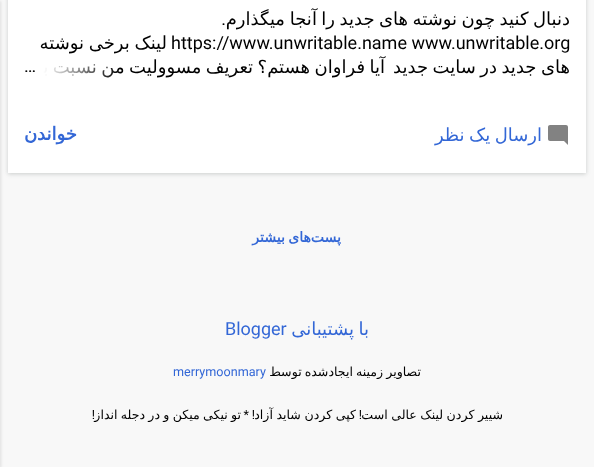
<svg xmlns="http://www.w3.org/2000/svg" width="594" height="467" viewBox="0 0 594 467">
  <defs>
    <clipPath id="clip1"><rect x="24" y="0" width="546" height="79"/></clipPath>
    <linearGradient id="g1" gradientUnits="userSpaceOnUse" x1="24" y1="67" x2="120" y2="67"><stop offset="0" stop-color="rgb(255,255,255)"/><stop offset="0.2" stop-color="rgb(255,255,255)"/><stop offset="1" stop-color="rgb(255,255,255)" stop-opacity="0"/></linearGradient>
  </defs>
  <rect width="100%" height="100%" fill="rgb(248,248,248)"/>
  <rect x="8" y="-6" width="578" height="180" fill="rgba(96,107,104,0.3)" filter="blur(2px)"/>
  <rect x="8" y="0" width="578" height="173" fill="rgb(255,255,255)"/>
  <g clip-path="url(#clip1)">
    <text x="570" y="25" word-spacing="-1.25" font-family="DejaVu Sans" font-size="18" direction="rtl" fill="rgb(0,0,0)">دنبال کنید چون نوشته های جدید را آنجا</text>
  </g>
  <text x="285" y="25" font-family="DejaVu Sans" font-size="18" direction="rtl" fill="rgb(0,0,0)">میگذارم</text>
  <text x="226" y="25" font-family="Roboto" font-size="18" direction="rtl" fill="rgb(0,0,0)">.</text>
  <text x="171" y="49" font-family="Roboto" font-size="18" fill="rgb(0,0,0)">https://www.unwritable.name www.unwritable.org</text>
  <g font-family="DejaVu Sans" font-size="18" direction="rtl" fill="rgb(0,0,0)">
    <text x="167" y="49" word-spacing="-1">لینک برخی نوشته</text>
    <text x="385" y="73" word-spacing="-1.25">آیا فراوان هستم؟ تعریف مسوولیت من نسبت به</text>
  </g>
  <g clip-path="url(#clip1)">
    <text x="570" y="73" word-spacing="-1.25" font-family="DejaVu Sans" font-size="18" direction="rtl" fill="rgb(0,0,0)">های جدید در سایت جدید</text>
  </g>
  <rect x="34" y="64" width="84" height="14" fill="url(#g1)"/>
  <text x="24" y="72" font-family="Roboto" font-size="18" fill="rgb(0,0,0)">…</text>
  <image x="548" y="125" width="20" height="20" href="pic1.png"/>
  <text x="542" y="141" word-spacing="-1.25" font-family="DejaVu Sans" font-size="18" direction="rtl" fill="rgb(51,103,214)">ارسال یک نظر</text>
  <text x="77" y="140" font-family="DejaVu Sans" font-size="18" font-weight="bold" direction="rtl" fill="rgb(51,103,214)">خواندن</text>
  <text x="341" y="242" word-spacing="-1" font-family="DejaVu Sans" font-size="14" font-weight="bold" direction="rtl" fill="rgb(51,103,214)">پست‌های بیشتر</text>
  <text x="369" y="335" word-spacing="-1.25" font-family="DejaVu Sans" font-size="18" direction="rtl" fill="rgb(51,103,214)">با پشتیبانی</text>
  <text x="225" y="335" font-family="Roboto" font-size="18" fill="rgb(51,103,214)">Blogger</text>
  <text x="421" y="376" word-spacing="-1" font-family="DejaVu Sans" font-size="12.6" direction="rtl" fill="rgb(0,0,0)">تصاویر زمینه ایجادشده توسط</text>
  <text x="173" y="376" font-family="Roboto" font-size="12.6" fill="rgb(51,103,214)">merrymoonmary</text>
  <g font-family="DejaVu Sans" font-size="12.6" direction="rtl" fill="rgb(0,0,0)">
    <text x="503" y="419" word-spacing="-0.5">شییر کردن لینک عالی است</text>
    <text x="356" y="419" word-spacing="-0.5">کپی کردن شاید آزاد</text>
    <text x="241" y="419" word-spacing="-0.75">تو نیکی میکن و در دجله انداز</text>
  </g>
  <g font-family="Roboto" font-size="12.6" direction="rtl" fill="rgb(0,0,0)">
    <text x="95" y="419">!</text>
    <text x="362" y="419">!</text>
    <text x="255" y="419">!</text>
    <text x="249" y="419">*</text>
  </g>
  <rect x="-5" y="1" width="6" height="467" fill="rgba(0,0,0,0.1)" filter="blur(1.5px)"/>
</svg>
